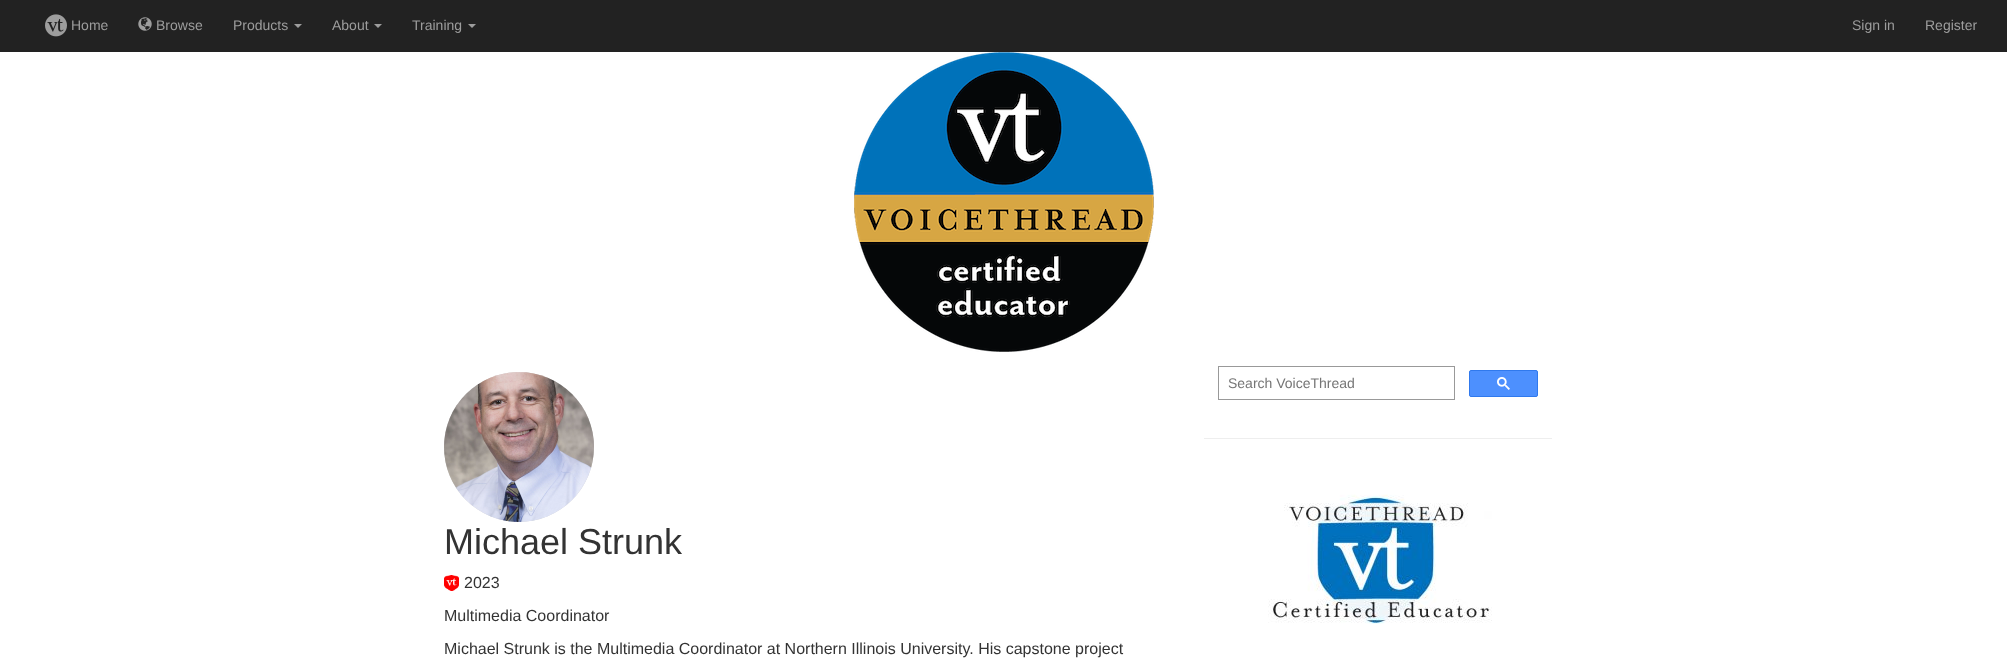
<svg xmlns="http://www.w3.org/2000/svg" width="2007" height="660" viewBox="0 0 2007 660">
  <rect width="100%" height="100%" fill="rgb(255,255,255)"/>
  <rect x="0" y="0" width="2007" height="52" fill="rgb(34,34,34)"/>
  <image x="45" y="14" width="22" height="23" href="pic1.png"/>
  <text x="71" y="30" font-family="Liberation Sans" font-size="14" fill="rgb(157,157,157)">Home</text>
  <image x="138" y="17" width="14" height="14" href="pic2.png"/>
  <g font-family="Liberation Sans" font-size="14" fill="rgb(157,157,157)">
    <text x="156" y="30">Browse</text>
    <text x="233" y="30">Products</text>
  </g>
  <path d="M294 24H302L298 28Z" fill="rgb(157,157,157)"/>
  <text x="332" y="30" font-family="Liberation Sans" font-size="14" fill="rgb(157,157,157)">About</text>
  <path d="M374 24H382L378 28Z" fill="rgb(157,157,157)"/>
  <text x="412" y="30" font-family="Liberation Sans" font-size="14" fill="rgb(157,157,157)">Training</text>
  <path d="M468 24H476L472 28Z" fill="rgb(157,157,157)"/>
  <g font-family="Liberation Sans" font-size="14" fill="rgb(157,157,157)">
    <text x="1852" y="30">Sign in</text>
    <text x="1925" y="30">Register</text>
  </g>
  <image x="854" y="52" width="300" height="300" href="pic3.png"/>
  <rect x="1218.5" y="366.5" width="236" height="33" fill="none" stroke="rgb(153,153,153)"/>
  <text x="1228" y="388" font-family="Liberation Sans" font-size="14" fill="rgb(117,117,117)">Search VoiceThread</text>
  <rect x="1469.5" y="370.5" width="68" height="26" rx="1.5" fill="rgb(77,144,254)" stroke="rgb(48,121,237)"/>
  <image x="1497" y="377" width="13" height="13" href="pic4.png"/>
  <rect x="1204" y="438" width="348" height="1" fill="rgb(238,238,238)"/>
  <image x="1268" y="494" width="224" height="130" href="pic5.png"/>
  <circle cx="519" cy="447" r="75" fill="rgb(211,211,211)"/>
  <image x="444" y="372" width="150" height="150" href="pic6.png"/>
  <text x="444" y="554" font-family="Liberation Sans" font-size="36" fill="rgb(51,51,51)">Michael Strunk</text>
  <image x="444" y="575" width="15" height="16" href="pic7.png"/>
  <g font-family="Liberation Sans" font-size="16" fill="rgb(51,51,51)">
    <text x="464" y="588">2023</text>
    <text x="444" y="621">Multimedia Coordinator</text>
    <text x="444" y="654">Michael Strunk is the Multimedia Coordinator at Northern Illinois University. His capstone project</text>
  </g>
</svg>
